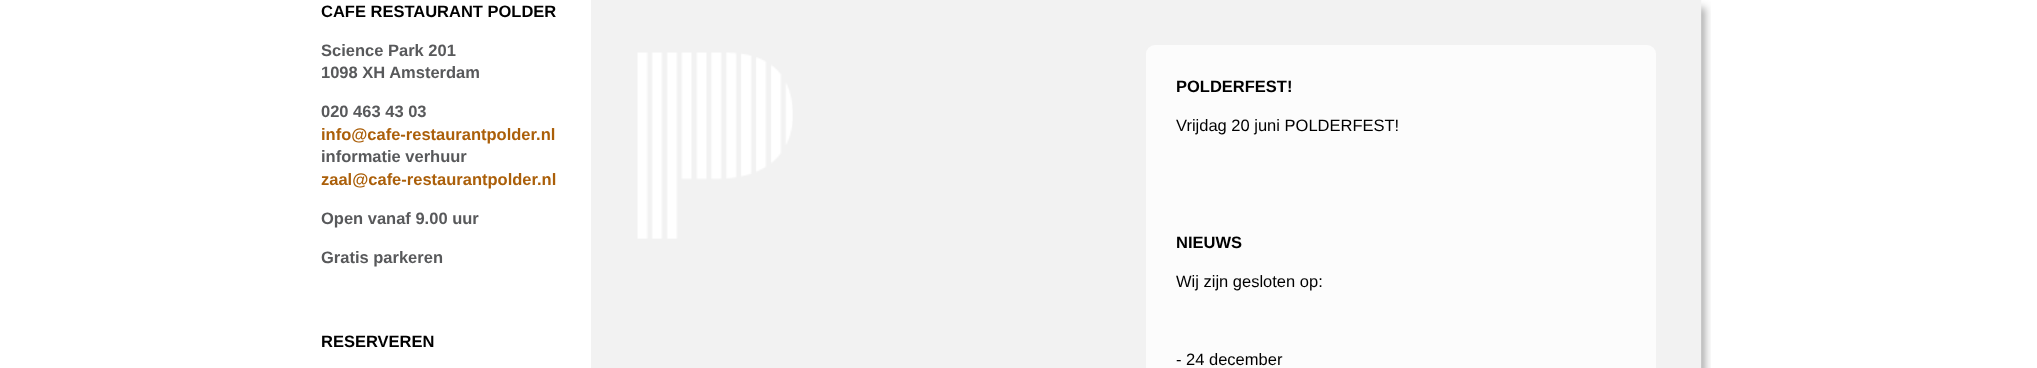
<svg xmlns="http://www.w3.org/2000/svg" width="2037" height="368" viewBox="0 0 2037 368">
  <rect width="100%" height="100%" fill="rgb(255,255,255)"/>
  <image x="1701" y="0" width="10" height="368" href="pic1.png"/>
  <text x="321" y="17" font-family="Liberation Sans" font-size="16.5" font-weight="bold" fill="rgb(0,0,0)">CAFE RESTAURANT POLDER</text>
  <g font-family="Liberation Sans" font-size="16.5" font-weight="bold" fill="rgb(88,89,91)">
    <text>
      <tspan x="321" y="56">Science Park 201</tspan>
      <tspan x="321" y="78">1098 XH Amsterdam</tspan>
    </text>
    <text x="321" y="117">020 463 43 03</text>
  </g>
  <text x="321" y="140" font-family="Liberation Sans" font-size="16.5" font-weight="bold" fill="rgb(171,95,9)">info@cafe-restaurantpolder.nl</text>
  <text x="321" y="162" font-family="Liberation Sans" font-size="16.5" font-weight="bold" fill="rgb(88,89,91)">informatie verhuur</text>
  <text x="321" y="185" font-family="Liberation Sans" font-size="16.5" font-weight="bold" fill="rgb(171,95,9)">zaal@cafe-restaurantpolder.nl</text>
  <g font-family="Liberation Sans" font-size="16.5" font-weight="bold" fill="rgb(88,89,91)">
    <text x="321" y="224">Open vanaf 9.00 uur</text>
    <text x="321" y="263">Gratis parkeren</text>
  </g>
  <text x="321" y="347" font-family="Liberation Sans" font-size="16.5" font-weight="bold" fill="rgb(0,0,0)">RESERVEREN</text>
  <rect x="591" y="0" width="1110" height="368" fill="rgb(242,242,242)"/>
  <image x="637" y="52" width="156" height="187" href="pic2.png"/>
  <rect x="1146" y="45" width="510" height="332" rx="9" fill="rgb(252,252,252)"/>
  <text x="1176" y="92" font-family="Liberation Sans" font-size="16.5" font-weight="bold" fill="rgb(0,0,0)">POLDERFEST!</text>
  <text x="1176" y="131" font-family="Liberation Sans" font-size="16.5" fill="rgb(0,0,0)">Vrijdag 20 juni POLDERFEST!</text>
  <text x="1176" y="248" font-family="Liberation Sans" font-size="16.5" font-weight="bold" fill="rgb(0,0,0)">NIEUWS</text>
  <g font-family="Liberation Sans" font-size="16.5" fill="rgb(0,0,0)">
    <text x="1176" y="287">Wij zijn gesloten op:</text>
    <text x="1176" y="365">- 24 december</text>
  </g>
</svg>
